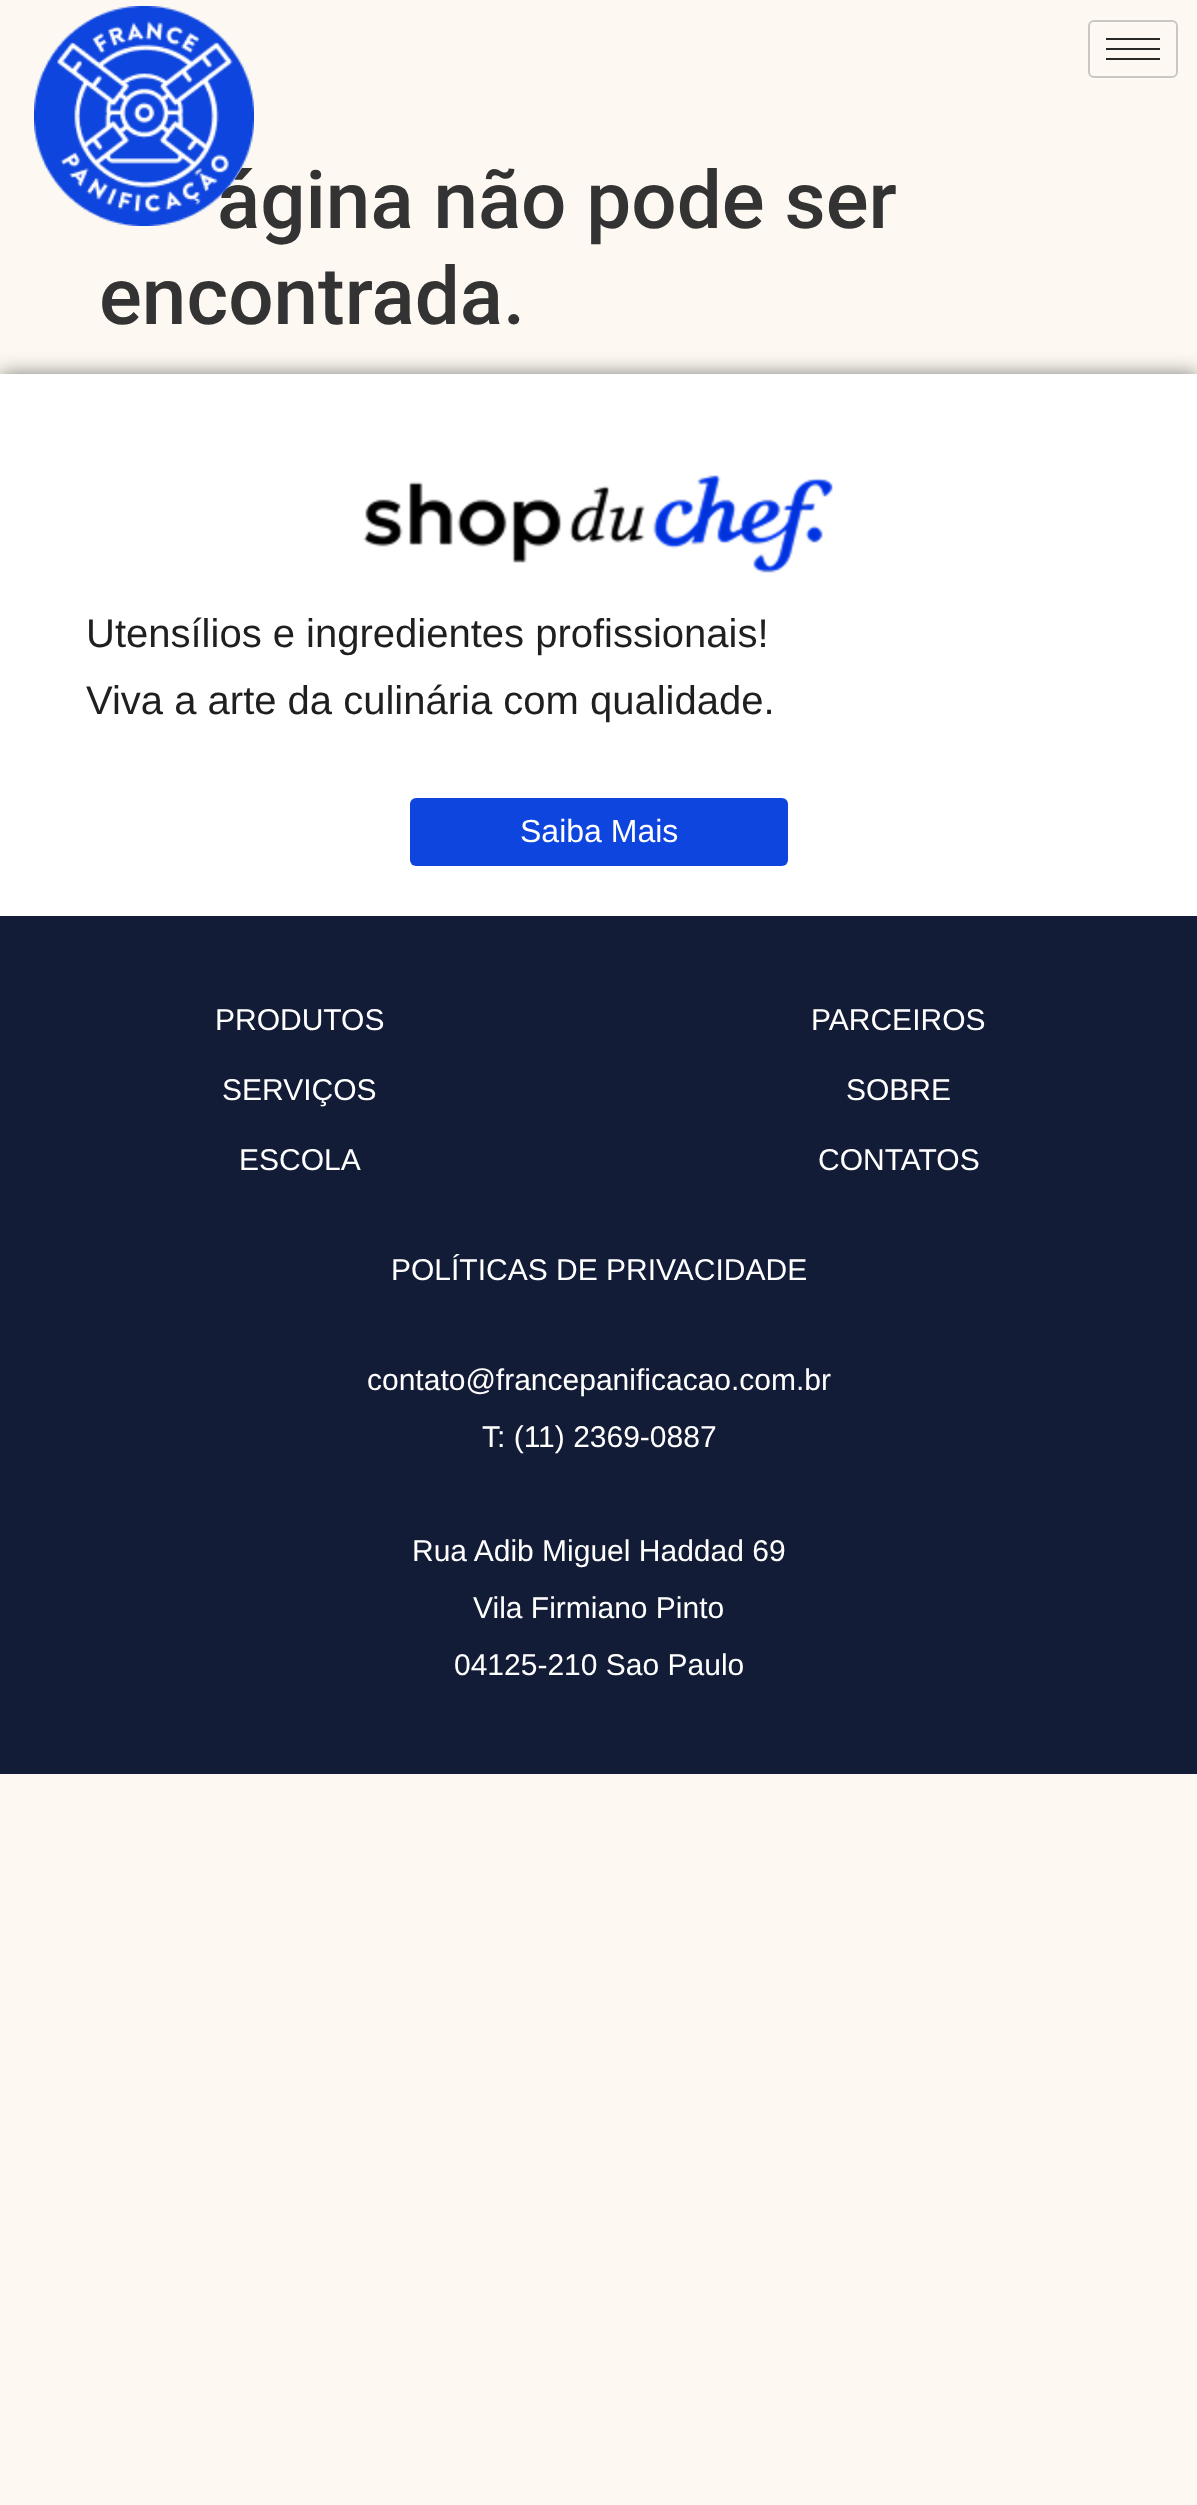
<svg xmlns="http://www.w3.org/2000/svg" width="1197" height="2505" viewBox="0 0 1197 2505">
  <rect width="100%" height="100%" fill="rgb(253,249,242)"/>
  <text x="217" y="228" font-family="Roboto" font-size="80" font-weight="500" fill="rgb(51,51,51)">ágina não pode ser</text>
  <image x="34" y="6" width="220" height="220" href="pic1.png"/>
  <rect x="1089" y="21" width="88" height="56" rx="5" fill="none" stroke="rgb(202,199,194)" stroke-width="2"/>
  <rect x="1106" y="38" width="54" height="2" fill="rgb(40,40,39)"/>
  <rect x="1106" y="48" width="54" height="2" fill="rgb(40,40,39)"/>
  <rect x="1106" y="58" width="54" height="2" fill="rgb(40,40,39)"/>
  <text x="99" y="324" font-family="Roboto" font-size="80" font-weight="500" fill="rgb(51,51,51)">encontrada.</text>
  <rect x="0" y="374" width="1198" height="542" fill="rgba(0,0,0,0.5)" filter="blur(10px)"/>
  <rect x="0" y="374" width="1197" height="542" fill="rgb(255,255,255)"/>
  <image x="363" y="475" width="470" height="98" href="pic2.png"/>
  <g font-family="Liberation Sans" font-size="40" fill="rgb(31,31,31)">
    <text>
      <tspan x="86" y="647">Utensílios e ingredientes profissionais!</tspan>
      <tspan x="86" y="714">Viva a arte da culinária com qualidade.</tspan>
    </text>
  </g>
  <rect x="410" y="798" width="378" height="68" rx="6" fill="rgb(14,69,222)"/>
  <text x="520" y="842" font-family="Liberation Sans" font-size="32" fill="rgb(255,255,255)">Saiba Mais</text>
  <rect x="0" y="916" width="1197" height="858" fill="rgb(19,28,54)"/>
  <g font-family="Liberation Sans" font-size="30" fill="rgb(255,255,255)">
    <text x="215" y="1030">PRODUTOS</text>
    <text x="222" y="1100">SERVIÇOS</text>
    <text x="239" y="1170">ESCOLA</text>
    <text x="811" y="1030">PARCEIROS</text>
    <text x="846" y="1100">SOBRE</text>
    <text x="818" y="1170">CONTATOS</text>
    <text x="391" y="1280">POLÍTICAS DE PRIVACIDADE</text>
    <text x="367" y="1390">contato@francepanificacao.com.br</text>
    <text x="482" y="1447">T: (11) 2369-0887</text>
    <text x="412" y="1561">Rua Adib Miguel Haddad 69</text>
    <text x="473" y="1618">Vila Firmiano Pinto</text>
    <text x="454" y="1675">04125-210 Sao Paulo</text>
  </g>
</svg>
